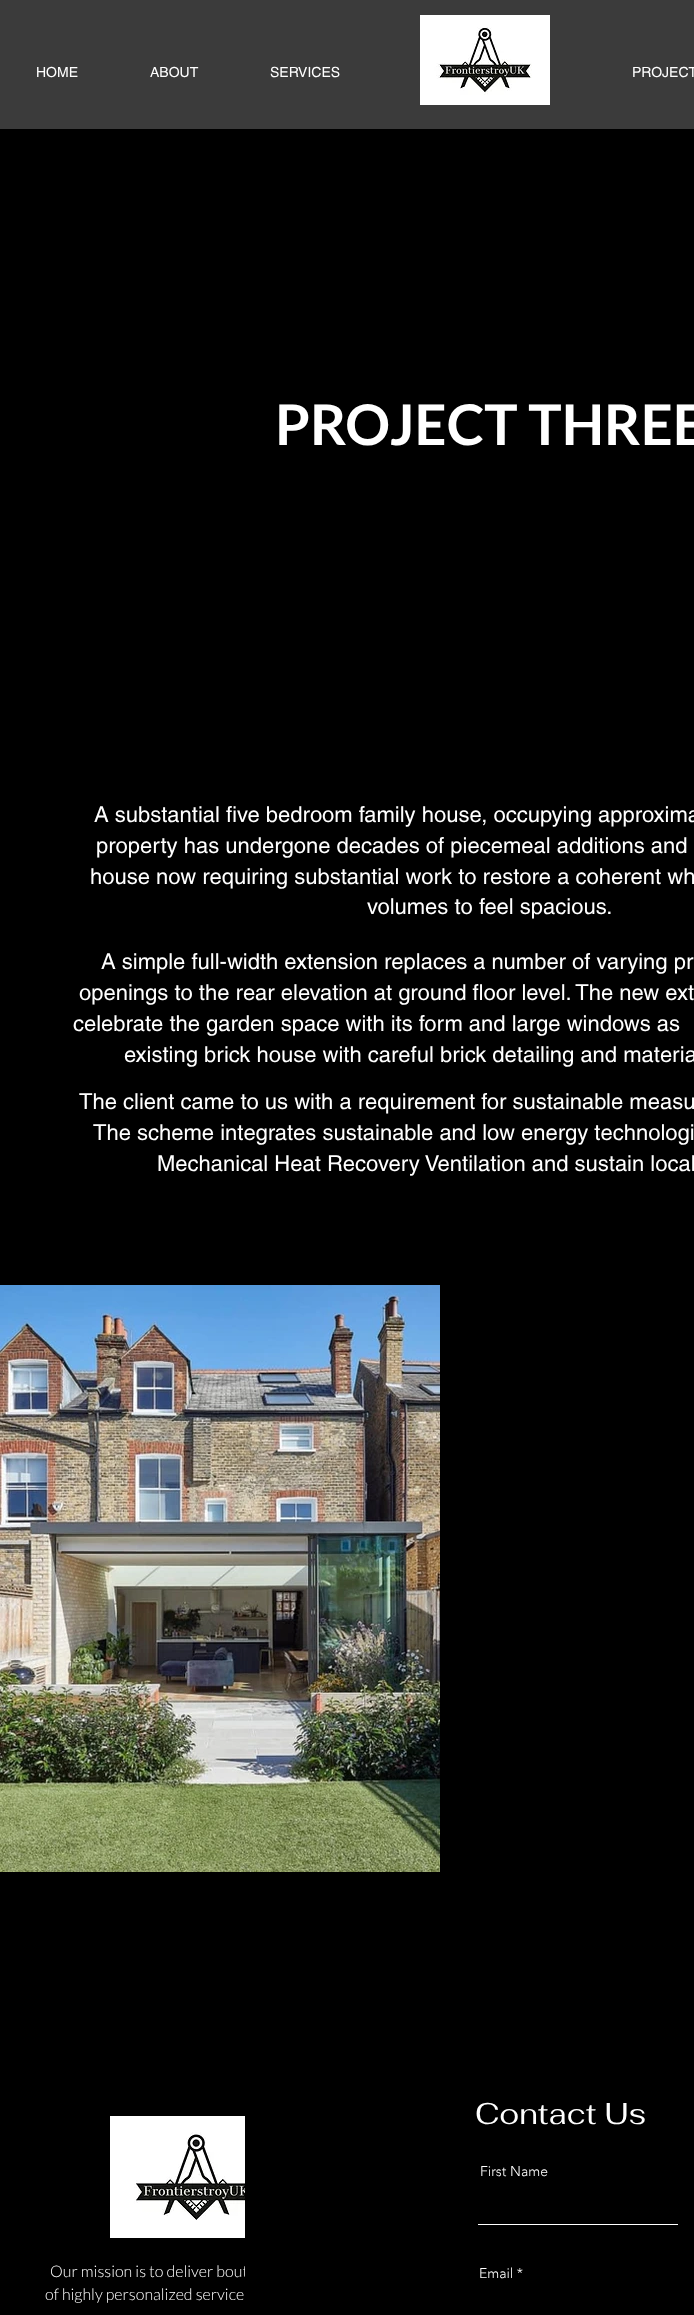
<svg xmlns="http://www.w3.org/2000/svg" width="694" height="2315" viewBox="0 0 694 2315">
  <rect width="100%" height="100%" fill="rgb(59,59,59)"/>
  <g font-family="helvetica" font-size="14" fill="rgb(255,255,255)">
    <text x="36" y="77">HOME</text>
    <text x="150" y="77">ABOUT</text>
    <text x="270" y="77">SERVICES</text>
  </g>
  <image x="420" y="15" width="130" height="90" href="pic1.png"/>
  <text x="632" y="77" font-family="helvetica" font-size="14" fill="rgb(255,255,255)">PROJECT</text>
  <rect x="0" y="129" width="694" height="2186" fill="rgb(0,0,0)"/>
  <text x="275" y="445" font-family="Lato" font-size="56" font-weight="bold" fill="rgb(255,255,255)">PROJECT THREE</text>
  <g font-family="helvetica" font-size="22" fill="rgb(255,255,255)">
    <text x="94" y="822">A substantial five bedroom family house, occupying approxima</text>
    <text x="96" y="853">property has undergone decades of piecemeal additions and</text>
    <text x="90" y="884">house now requiring substantial work to restore a coherent wh</text>
    <text x="367" y="914">volumes to feel spacious.</text>
    <text x="101" y="969">A simple full-width extension replaces a number of varying pr</text>
    <text x="79" y="1000">openings to the rear elevation at ground floor level. The new ext</text>
    <text x="73" y="1031">celebrate the garden space with its form and large windows as</text>
    <text x="124" y="1062">existing brick house with careful brick detailing and materia</text>
    <text x="79" y="1109">The client came to us with a requirement for sustainable measu</text>
    <text x="93" y="1140">The scheme integrates sustainable and low energy technologi</text>
    <text x="157" y="1171">Mechanical Heat Recovery Ventilation and sustain local</text>
  </g>
  <image x="0" y="1285" width="440" height="587" href="pic2.png"/>
  <text x="475" y="2124" font-family="Fahkwang" font-size="30" fill="rgb(255,255,255)">Contact Us</text>
  <text x="480" y="2176" font-family="'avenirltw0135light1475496'" font-size="14" font-weight="300" fill="rgb(255,255,255)">First Name</text>
  <rect x="478" y="2224" width="200" height="1" fill="rgb(255,255,255)"/>
  <text x="479" y="2278" font-family="'avenirltw0135light1475496'" font-size="14" font-weight="300" fill="rgb(255,255,255)">Email *</text>
  <image x="110" y="2116" width="135" height="122" href="pic3.png"/>
  <g font-family="Lato" font-size="16" font-weight="300" fill="rgb(255,255,255)">
    <text x="50" y="2277">Our mission is to deliver bout</text>
    <text x="45" y="2300">of highly personalized service</text>
  </g>
  <rect x="245" y="2266" width="3" height="12" fill="rgb(0,0,0)"/>
</svg>
